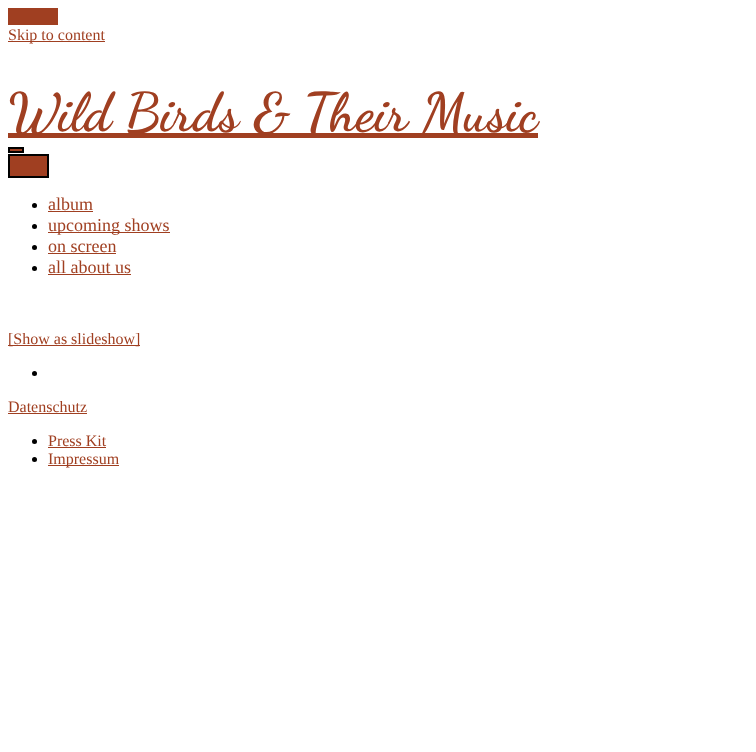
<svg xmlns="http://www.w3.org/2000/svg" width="756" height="752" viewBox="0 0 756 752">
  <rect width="100%" height="100%" fill="rgb(255,255,255)"/>
  <rect x="8" y="8" width="50" height="17" fill="rgb(160,63,33)"/>
  <rect x="8" y="41" width="97" height="1" fill="rgb(160,63,33)"/>
  <text x="8" y="40" font-family="Liberation Serif" font-size="16" fill="rgb(160,63,33)">Skip to content</text>
  <rect x="8" y="133" width="530" height="5" fill="rgb(160,63,33)"/>
  <text x="8" y="130" font-family="Dancing Script" font-size="54" font-weight="bold" fill="rgb(160,63,33)">Wild Birds &amp; Their Music</text>
  <rect x="9" y="148" width="14" height="4" fill="rgb(160,63,33)" stroke="rgb(0,0,0)" stroke-width="2"/>
  <rect x="9" y="155" width="39" height="22" fill="rgb(160,63,33)" stroke="rgb(0,0,0)" stroke-width="2"/>
  <circle cx="34.5" cy="205.5" r="2.5" fill="rgb(0,0,0)"/>
  <text x="48" y="210" font-family="Liberation Serif" font-size="18" fill="rgb(160,63,33)">album</text>
  <rect x="48" y="211" width="45" height="1" fill="rgb(160,63,33)"/>
  <circle cx="34.5" cy="226.5" r="2.5" fill="rgb(0,0,0)"/>
  <rect x="48" y="232" width="122" height="1" fill="rgb(160,63,33)"/>
  <text x="48" y="231" font-family="Liberation Serif" font-size="18" fill="rgb(160,63,33)">upcoming shows</text>
  <circle cx="34.5" cy="247.5" r="2.5" fill="rgb(0,0,0)"/>
  <text x="48" y="252" font-family="Liberation Serif" font-size="18" fill="rgb(160,63,33)">on screen</text>
  <rect x="48" y="253" width="68" height="1" fill="rgb(160,63,33)"/>
  <circle cx="34.5" cy="268.5" r="2.5" fill="rgb(0,0,0)"/>
  <text x="48" y="273" font-family="Liberation Serif" font-size="18" fill="rgb(160,63,33)">all about us</text>
  <rect x="48" y="274" width="83" height="1" fill="rgb(160,63,33)"/>
  <rect x="8" y="345" width="132" height="1" fill="rgb(160,63,33)"/>
  <text x="8" y="344" font-family="Liberation Serif" font-size="16" fill="rgb(160,63,33)">[Show as slideshow]</text>
  <circle cx="34.5" cy="373.5" r="2.5" fill="rgb(0,0,0)"/>
  <text x="8" y="412" font-family="Liberation Serif" font-size="16" fill="rgb(160,63,33)">Datenschutz</text>
  <rect x="8" y="413" width="79" height="1" fill="rgb(160,63,33)"/>
  <circle cx="34.5" cy="441.5" r="2.5" fill="rgb(0,0,0)"/>
  <text x="48" y="446" font-family="Liberation Serif" font-size="16" fill="rgb(160,63,33)">Press Kit</text>
  <rect x="48" y="447" width="58" height="1" fill="rgb(160,63,33)"/>
  <circle cx="34.5" cy="459.5" r="2.5" fill="rgb(0,0,0)"/>
  <rect x="48" y="465" width="71" height="1" fill="rgb(160,63,33)"/>
  <text x="48" y="464" font-family="Liberation Serif" font-size="16" fill="rgb(160,63,33)">Impressum</text>
</svg>
